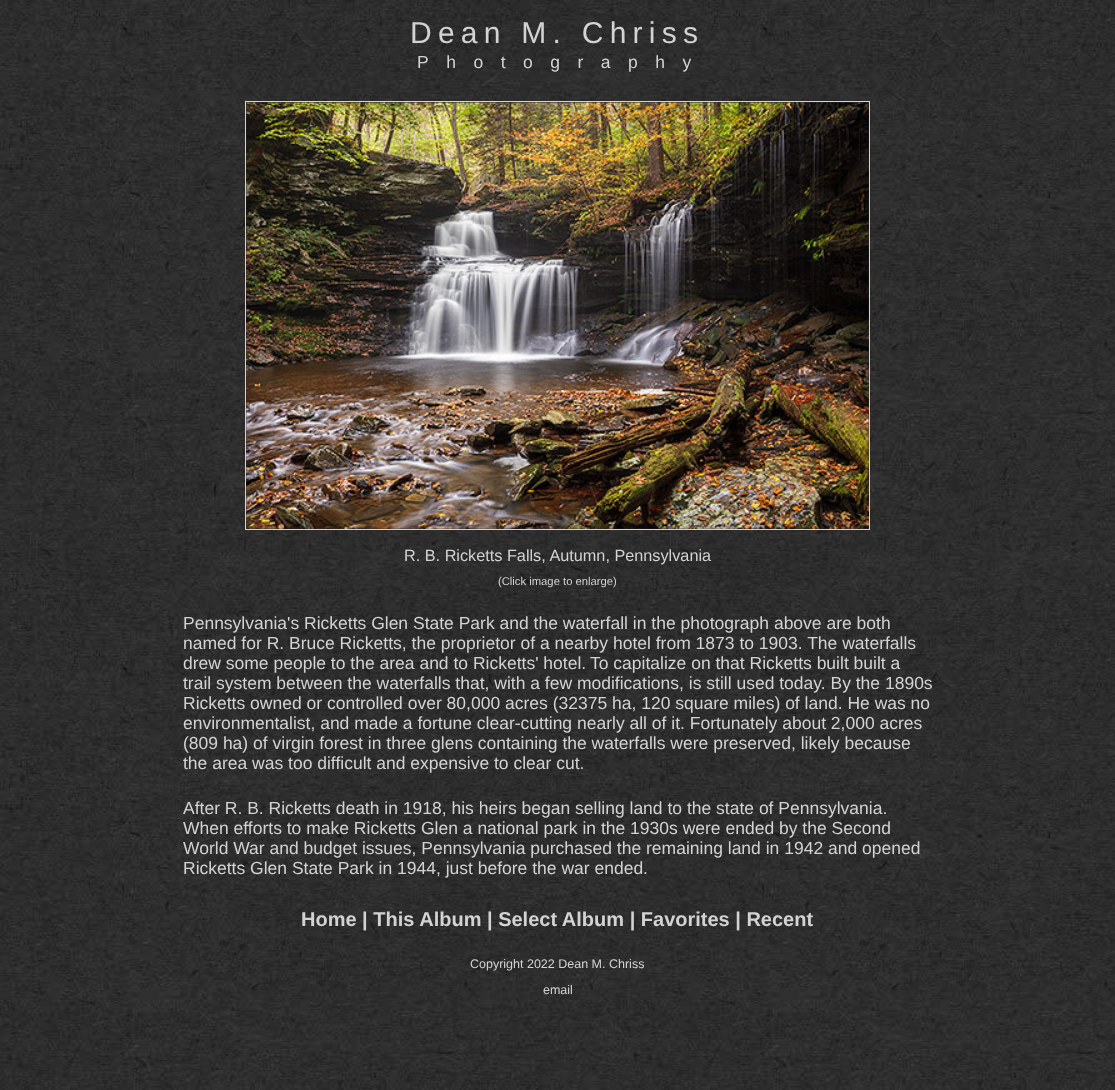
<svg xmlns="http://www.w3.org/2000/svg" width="1115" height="1090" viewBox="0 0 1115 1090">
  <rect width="100%" height="100%" fill="rgb(255,255,255)"/>
  <image x="0" y="0" width="1115" height="1090" href="pic1.png"/>
  <text x="410" y="43" font-family="Liberation Sans" font-size="30" letter-spacing="6.25" fill="rgb(211,211,211)">Dean M. Chriss</text>
  <text x="417" y="68" font-family="Liberation Sans" font-size="17.5" letter-spacing="17.5" fill="rgb(211,211,211)">Photography</text>
  <rect x="245.5" y="101.5" width="624" height="428" fill="none" stroke="rgb(211,211,211)"/>
  <image x="246" y="102" width="623" height="427" href="pic2.png"/>
  <text x="404" y="561" font-family="Liberation Sans" font-size="16.25" fill="rgb(211,211,211)">R. B. Ricketts Falls, Autumn, Pennsylvania</text>
  <text x="498" y="585" font-family="Liberation Sans" font-size="11.25" fill="rgb(211,211,211)">(Click image to enlarge)</text>
  <g font-family="Liberation Sans" font-size="17.5" fill="rgb(211,211,211)">
    <text>
      <tspan x="183" y="629">Pennsylvania's Ricketts Glen State Park and the waterfall in the photograph above are both</tspan>
      <tspan x="183" y="649">named for R. Bruce Ricketts, the proprietor of a nearby hotel from 1873 to 1903. The waterfalls</tspan>
      <tspan x="183" y="669">drew some people to the area and to Ricketts' hotel.</tspan>
    </text>
    <text x="590" y="669">To capitalize on that Ricketts built built a</text>
    <text>
      <tspan x="183" y="689">trail system between the waterfalls that, with a few modifications, is still used today. By the 1890s</tspan>
      <tspan x="183" y="709">Ricketts owned or controlled over 80,000 acres (32375 ha, 120 square miles) of land. He was no</tspan>
      <tspan x="183" y="729">environmentalist, and made a fortune clear-cutting nearly all of it. Fortunately about 2,000 acres</tspan>
      <tspan x="183" y="749">(809 ha) of virgin forest in three glens containing the waterfalls were preserved, likely because</tspan>
      <tspan x="183" y="769">the area was too difficult and expensive to clear cut.</tspan>
    </text>
    <text>
      <tspan x="183" y="814">After R. B. Ricketts death in 1918, his heirs began selling land to the state of Pennsylvania.</tspan>
      <tspan x="183" y="834">When efforts to make Ricketts Glen a national park in the 1930s were ended by the Second</tspan>
      <tspan x="183" y="854">World War and budget issues, Pennsylvania purchased the remaining land in 1942 and opened</tspan>
      <tspan x="183" y="874">Ricketts Glen State Park in 1944, just before the war ended.</tspan>
    </text>
  </g>
  <text x="301" y="926" font-family="Liberation Sans" font-size="20" font-weight="bold" fill="rgb(211,211,211)">Home | This Album | Select Album | Favorites | Recent</text>
  <g font-family="Liberation Sans" font-size="12.5" fill="rgb(211,211,211)">
    <text x="470" y="968">Copyright 2022 Dean M. Chriss</text>
    <text x="543" y="994">email</text>
  </g>
</svg>
